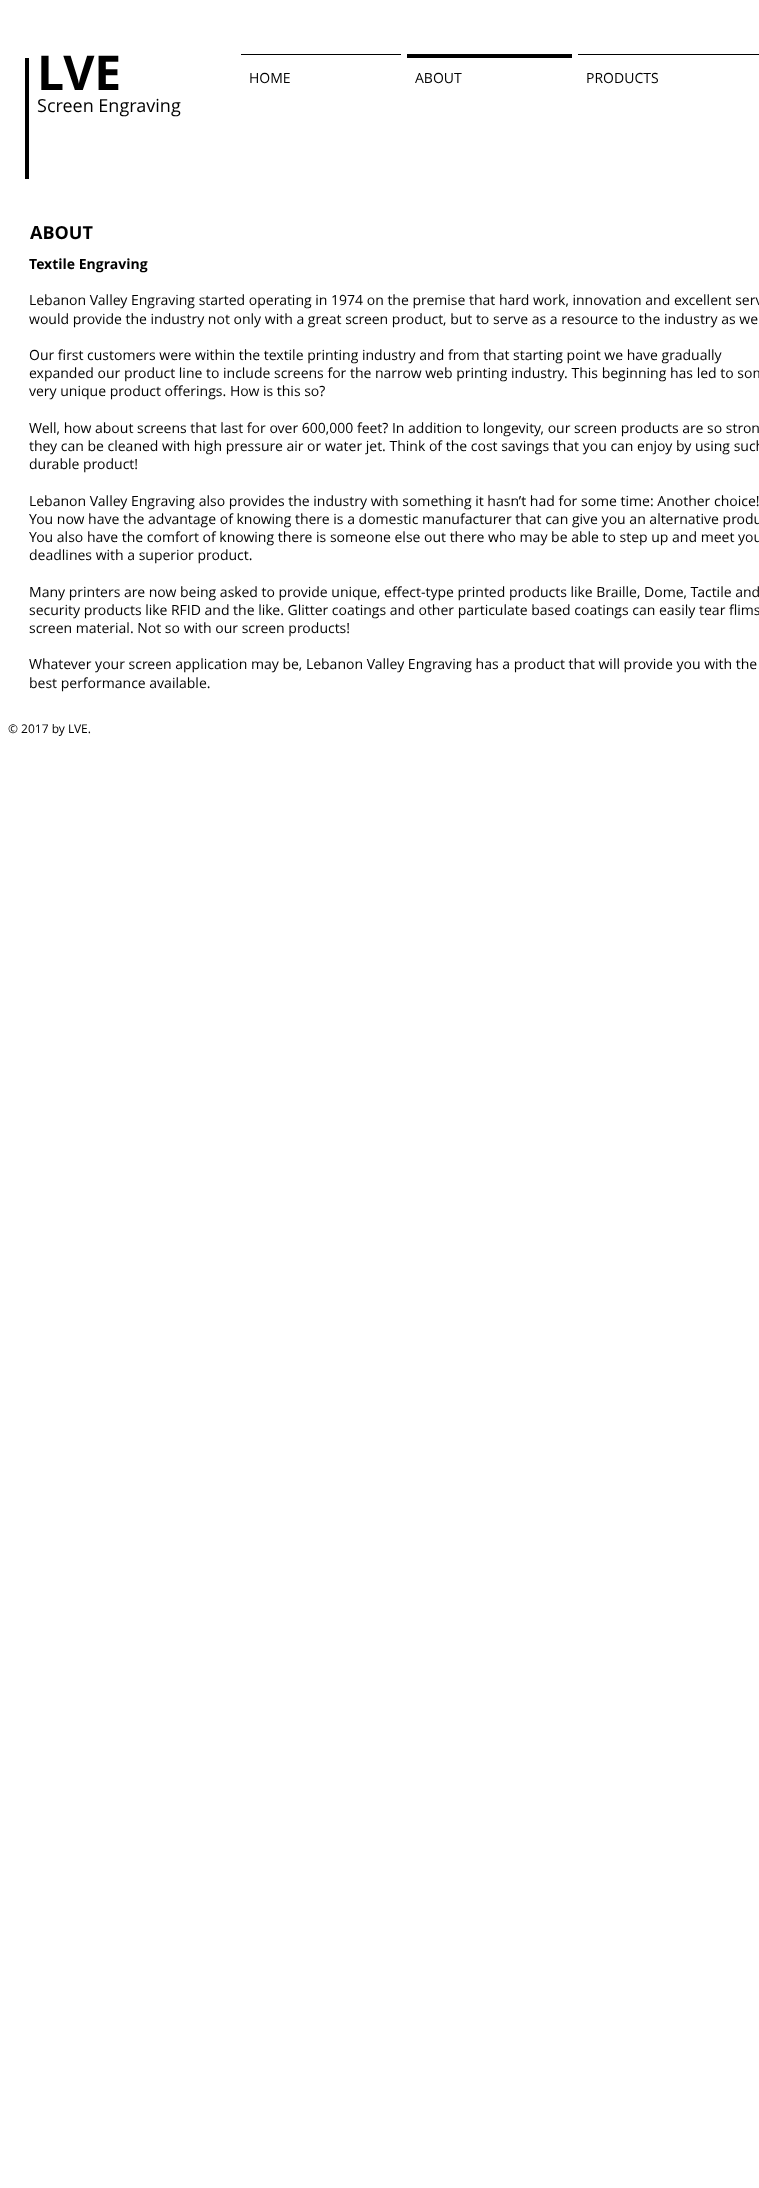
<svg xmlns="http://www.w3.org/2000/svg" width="759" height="2188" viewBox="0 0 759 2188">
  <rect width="100%" height="100%" fill="rgb(255,255,255)"/>
  <rect x="25" y="58" width="4" height="121" fill="rgb(0,0,0)"/>
  <text x="37" y="90" font-family="Open Sans" font-size="48" font-weight="bold" fill="rgb(0,0,0)">LVE</text>
  <text x="37" y="112" font-family="Open Sans" font-size="18" fill="rgb(0,0,0)">Screen Engraving</text>
  <rect x="241" y="54" width="160" height="1" fill="rgb(0,0,0)"/>
  <text x="249" y="83" font-family="Open Sans" font-size="14" fill="rgb(0,0,0)">HOME</text>
  <rect x="407" y="54" width="165" height="4" fill="rgb(0,0,0)"/>
  <text x="415" y="83" font-family="Open Sans" font-size="14" fill="rgb(0,0,0)">ABOUT</text>
  <rect x="578" y="54" width="181" height="1" fill="rgb(0,0,0)"/>
  <text x="586" y="83" font-family="Open Sans" font-size="14" fill="rgb(0,0,0)">PRODUCTS</text>
  <text x="30" y="239" font-family="Open Sans" font-size="18" font-weight="bold" fill="rgb(0,0,0)">ABOUT</text>
  <text x="29" y="269" font-family="Open Sans" font-size="14" font-weight="bold" fill="rgb(0,0,0)">Textile Engraving</text>
  <g font-family="Open Sans" font-size="14" fill="rgb(0,0,0)">
    <text>
      <tspan x="29" y="305">Lebanon Valley Engraving started operating in 1974 on the premise that hard work, innovation and excellent serv</tspan>
      <tspan x="29" y="324">would provide the industry not only with a great screen product, but to serve as a resource to the industry as we</tspan>
    </text>
    <text>
      <tspan x="29" y="360">Our first customers were within the textile printing industry and from that starting point we have gradually</tspan>
      <tspan x="29" y="378">expanded our product line to include screens for the narrow web printing industry. This beginning has led to som</tspan>
      <tspan x="29" y="396">very unique product offerings. How is this so?</tspan>
    </text>
    <text>
      <tspan x="29" y="433">Well, how about screens that last for over 600,000 feet? In addition to longevity, our screen products are so stron</tspan>
      <tspan x="29" y="451">they can be cleaned with high pressure air or water jet. Think of the cost savings that you can enjoy by using such</tspan>
      <tspan x="29" y="469">durable product!</tspan>
    </text>
    <text>
      <tspan x="29" y="506">Lebanon Valley Engraving also provides the industry with something it hasn’t had for some time: Another choice!</tspan>
      <tspan x="29" y="524">You now have the advantage of knowing there is a domestic manufacturer that can give you an alternative produ</tspan>
      <tspan x="29" y="542">You also have the comfort of knowing there is someone else out there who may be able to step up and meet you</tspan>
      <tspan x="29" y="560">deadlines with a superior product.</tspan>
    </text>
    <text>
      <tspan x="29" y="597">Many printers are now being asked to provide unique, effect-type printed products like Braille, Dome, Tactile and</tspan>
      <tspan x="29" y="615">security products like RFID and the like. Glitter coatings and other particulate based coatings can easily tear flims</tspan>
      <tspan x="29" y="633">screen material. Not so with our screen products!</tspan>
    </text>
    <text>
      <tspan x="29" y="669">Whatever your screen application may be, Lebanon Valley Engraving has a product that will provide you with the</tspan>
      <tspan x="29" y="688">best performance available.</tspan>
    </text>
  </g>
  <text x="8" y="733" font-family="Open Sans" font-size="12" fill="rgb(0,0,0)">© 2017 by LVE.</text>
</svg>
